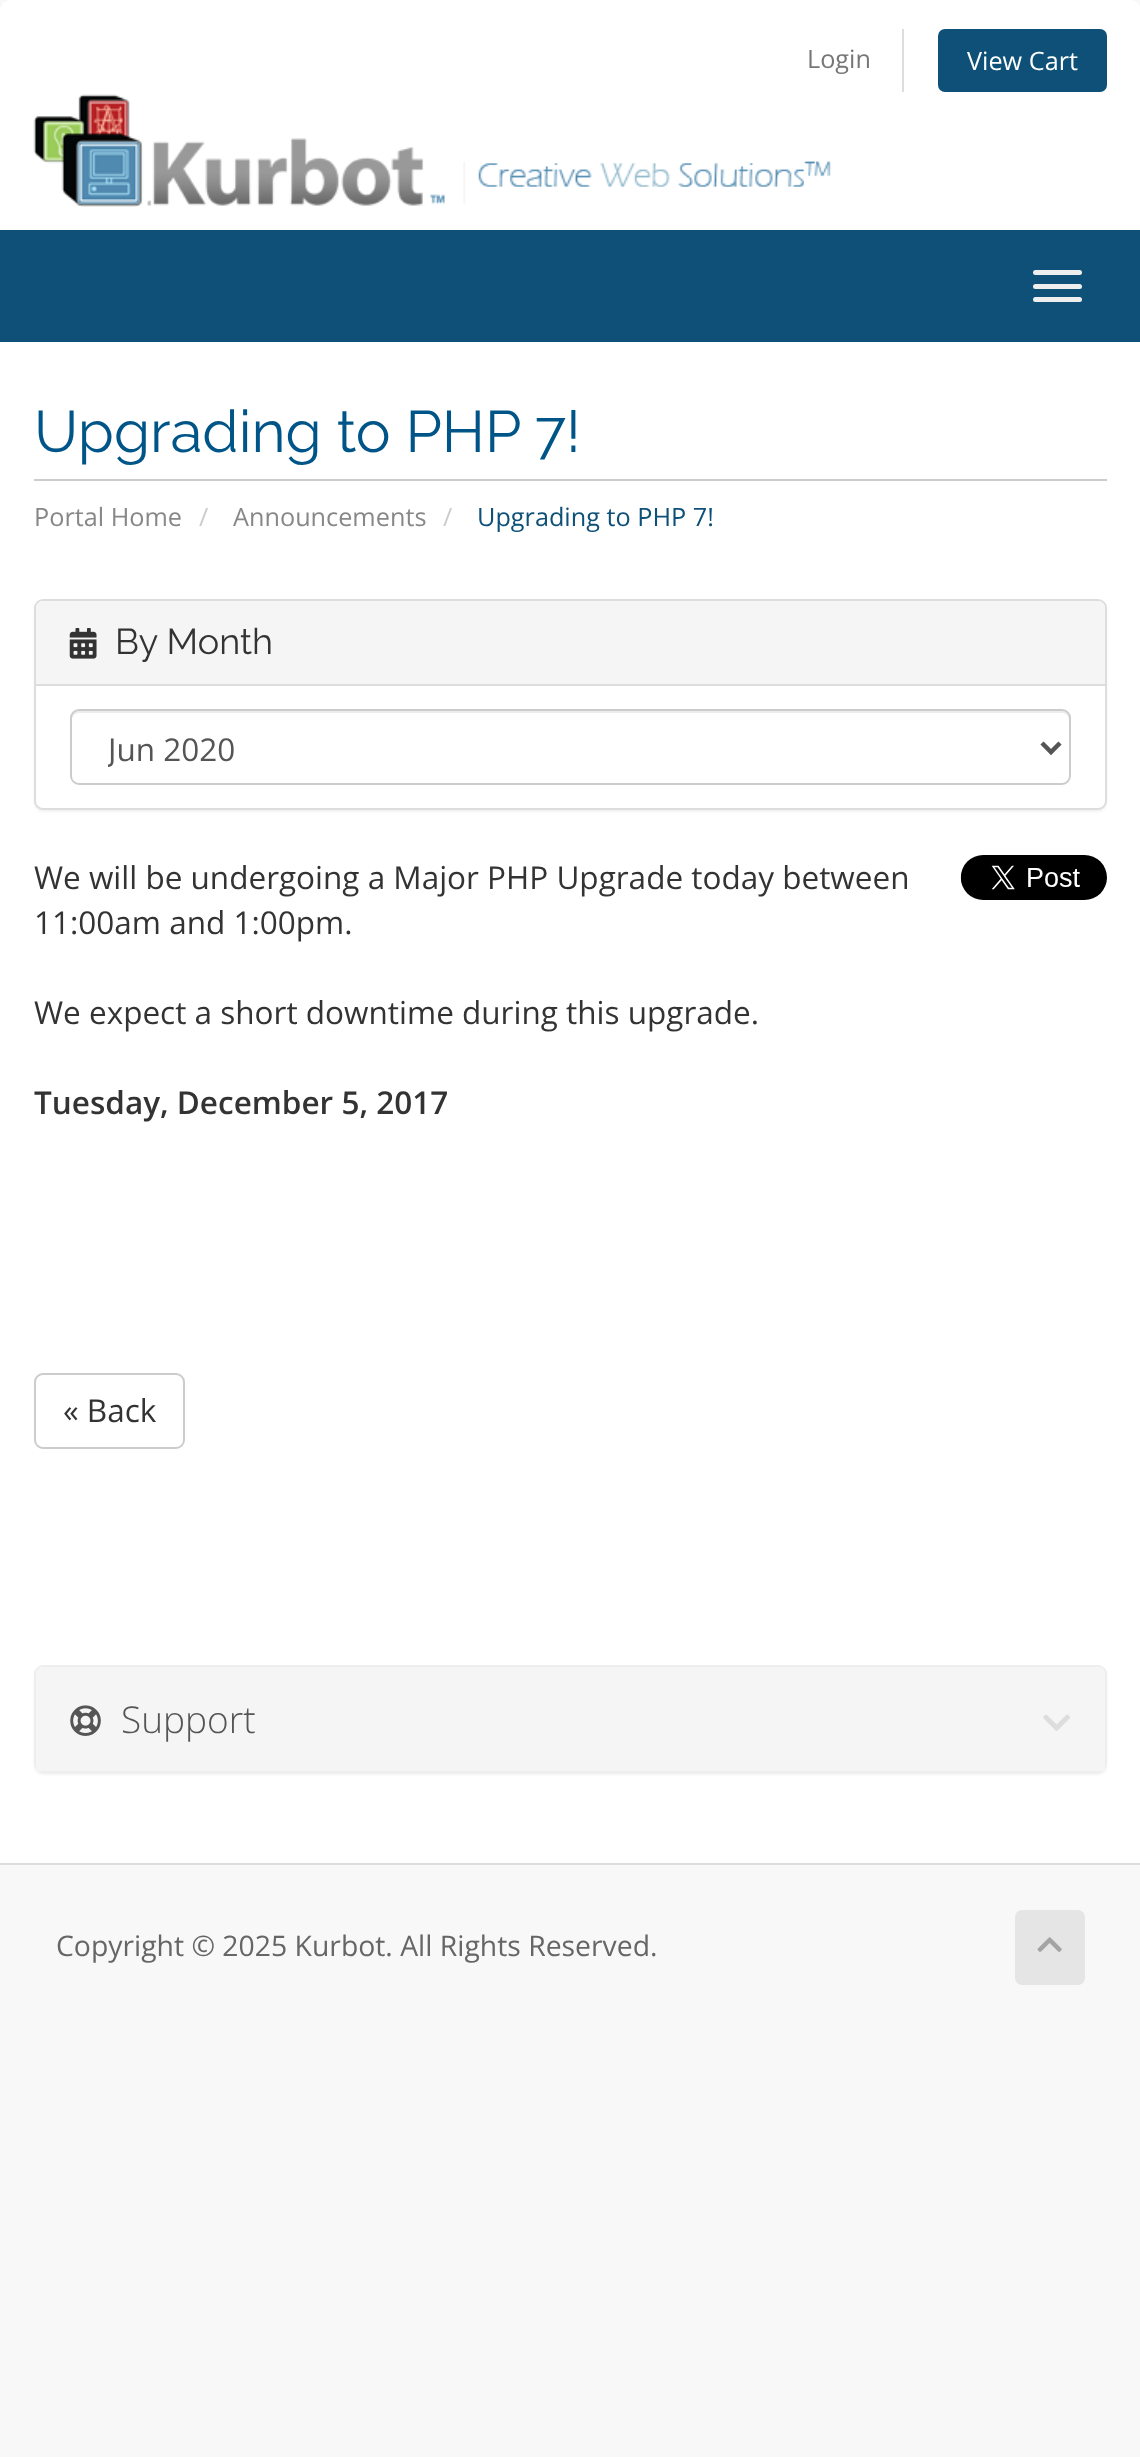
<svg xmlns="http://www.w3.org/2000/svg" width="1140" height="2457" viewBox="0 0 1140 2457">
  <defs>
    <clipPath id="clip1"><rect x="108" y="725" width="898" height="47"/></clipPath>
  </defs>
  <rect width="100%" height="100%" fill="rgb(248,248,248)"/>
  <path d="M11 0H1130C1136 0 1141 5 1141 11V230H0V11C0 5 5 0 11 0Z" fill="rgb(255,255,255)"/>
  <text x="807" y="68" font-family="Open Sans" font-size="25.25" fill="rgb(119,119,119)">Login</text>
  <rect x="902" y="29" width="2" height="63" fill="rgb(221,221,221)"/>
  <rect x="938" y="29" width="169" height="63" rx="7" fill="rgb(14,80,119)"/>
  <text x="967" y="70" font-family="Open Sans" font-size="25.25" fill="rgb(255,255,255)">View Cart</text>
  <image x="33" y="94" width="798" height="113" href="pic1.png"/>
  <rect x="0" y="230" width="1140" height="112" fill="rgb(14,80,119)"/>
  <rect x="1033" y="270" width="49" height="5" rx="2.5" fill="rgb(238,238,238)"/>
  <rect x="1033" y="284" width="49" height="5" rx="2.5" fill="rgb(238,238,238)"/>
  <rect x="1033" y="297" width="49" height="5" rx="2.5" fill="rgb(238,238,238)"/>
  <rect x="0" y="342" width="1140" height="1521" fill="rgb(255,255,255)"/>
  <rect x="34" y="479" width="1073" height="2" fill="rgb(204,204,204)"/>
  <text x="34" y="452" font-family="Raleway" font-size="58.5" fill="rgb(0,85,136)">Upgrading to PHP 7!</text>
  <text x="34" y="526" font-family="Open Sans" font-size="25.25" fill="rgb(136,136,136)">Portal Home</text>
  <text x="199" y="526" font-family="Open Sans" font-size="25.25" fill="rgb(204,204,204)">/</text>
  <text x="233" y="526" font-family="Open Sans" font-size="25.25" fill="rgb(136,136,136)">Announcements</text>
  <text x="443" y="526" font-family="Open Sans" font-size="25.25" fill="rgb(204,204,204)">/</text>
  <text x="477" y="526" font-family="Open Sans" font-size="25.25" fill="rgb(14,80,119)">Upgrading to PHP 7!</text>
  <rect x="34" y="601" width="1073" height="211" rx="9" fill="rgba(0,0,0,0.05)" filter="blur(1px)"/>
  <rect x="35" y="600" width="1071" height="209" rx="8" fill="rgb(255,255,255)" stroke="rgb(221,221,221)" stroke-width="2"/>
  <path d="M43 601H1098C1102 601 1105 604 1105 608V686H36V608C36 604 39 601 43 601Z" fill="rgb(245,245,245)"/>
  <rect x="36" y="684" width="1069" height="2" fill="rgb(221,221,221)"/>
  <image x="69" y="628" width="28" height="31" href="pic2.png"/>
  <text x="115" y="654" font-family="Raleway" font-size="36" fill="rgb(51,51,51)">By Month</text>
  <path d="M79 713H1062C1066 713 1069 716 1069 720V718C1069 714 1066 711 1062 711H79C75 711 72 714 72 718V720C72 716 75 713 79 713Z" fill="rgb(236,236,236)"/>
  <rect x="71" y="710" width="999" height="74" rx="8" fill="none" stroke="rgb(204,204,204)" stroke-width="2"/>
  <path d="M1042 743L1051 752L1060 743" fill="none" stroke="rgb(85,85,85)" stroke-width="4.5"/>
  <g clip-path="url(#clip1)">
    <text x="108" y="761" font-family="Open Sans" font-size="31.5" fill="rgb(85,85,85)">Jun 2020</text>
  </g>
  <text x="34" y="889" font-family="Open Sans" font-size="31.5" fill="rgb(51,51,51)">We will be undergoing a Major PHP Upgrade today between</text>
  <image x="960" y="855" width="147" height="45" href="pic3.png"/>
  <g font-family="Open Sans" font-size="31.5" fill="rgb(51,51,51)">
    <text x="34" y="934">11:00am and 1:00pm.</text>
    <text x="34" y="1024">We expect a short downtime during this upgrade.</text>
  </g>
  <text x="34" y="1114" font-family="Open Sans" font-size="31.5" font-weight="600" fill="rgb(51,51,51)">Tuesday, December 5, 2017</text>
  <rect x="35" y="1374" width="149" height="74" rx="8" fill="none" stroke="rgb(204,204,204)" stroke-width="2"/>
  <text x="63" y="1422" font-family="Open Sans" font-size="31.5" fill="rgb(51,51,51)">« Back</text>
  <rect x="34" y="1667" width="1073" height="108" rx="9" fill="rgba(0,0,0,0.05)" filter="blur(1px)"/>
  <rect x="35" y="1666" width="1071" height="106" rx="8" fill="none" stroke="rgb(238,238,238)" stroke-width="2"/>
  <path d="M43 1667H1098C1102 1667 1105 1670 1105 1674V1771H36V1674C36 1670 39 1667 43 1667Z" fill="rgb(245,245,245)"/>
  <image x="70" y="1705" width="31" height="31" href="pic4.png"/>
  <text x="121" y="1733" font-family="Open Sans" font-size="37" font-weight="300" fill="rgb(85,85,85)">Support</text>
  <image x="1043" y="1714" width="27" height="17" href="pic5.png"/>
  <rect x="0" y="1863" width="1140" height="2" fill="rgb(221,221,221)"/>
  <text x="56" y="1956" font-family="Open Sans" font-size="28.35" fill="rgb(102,102,102)">Copyright © 2025 Kurbot. All Rights Reserved.</text>
  <rect x="1015" y="1910" width="70" height="75" rx="7" fill="rgb(229,229,229)"/>
  <image x="1037" y="1937" width="25" height="15" href="pic6.png"/>
</svg>
